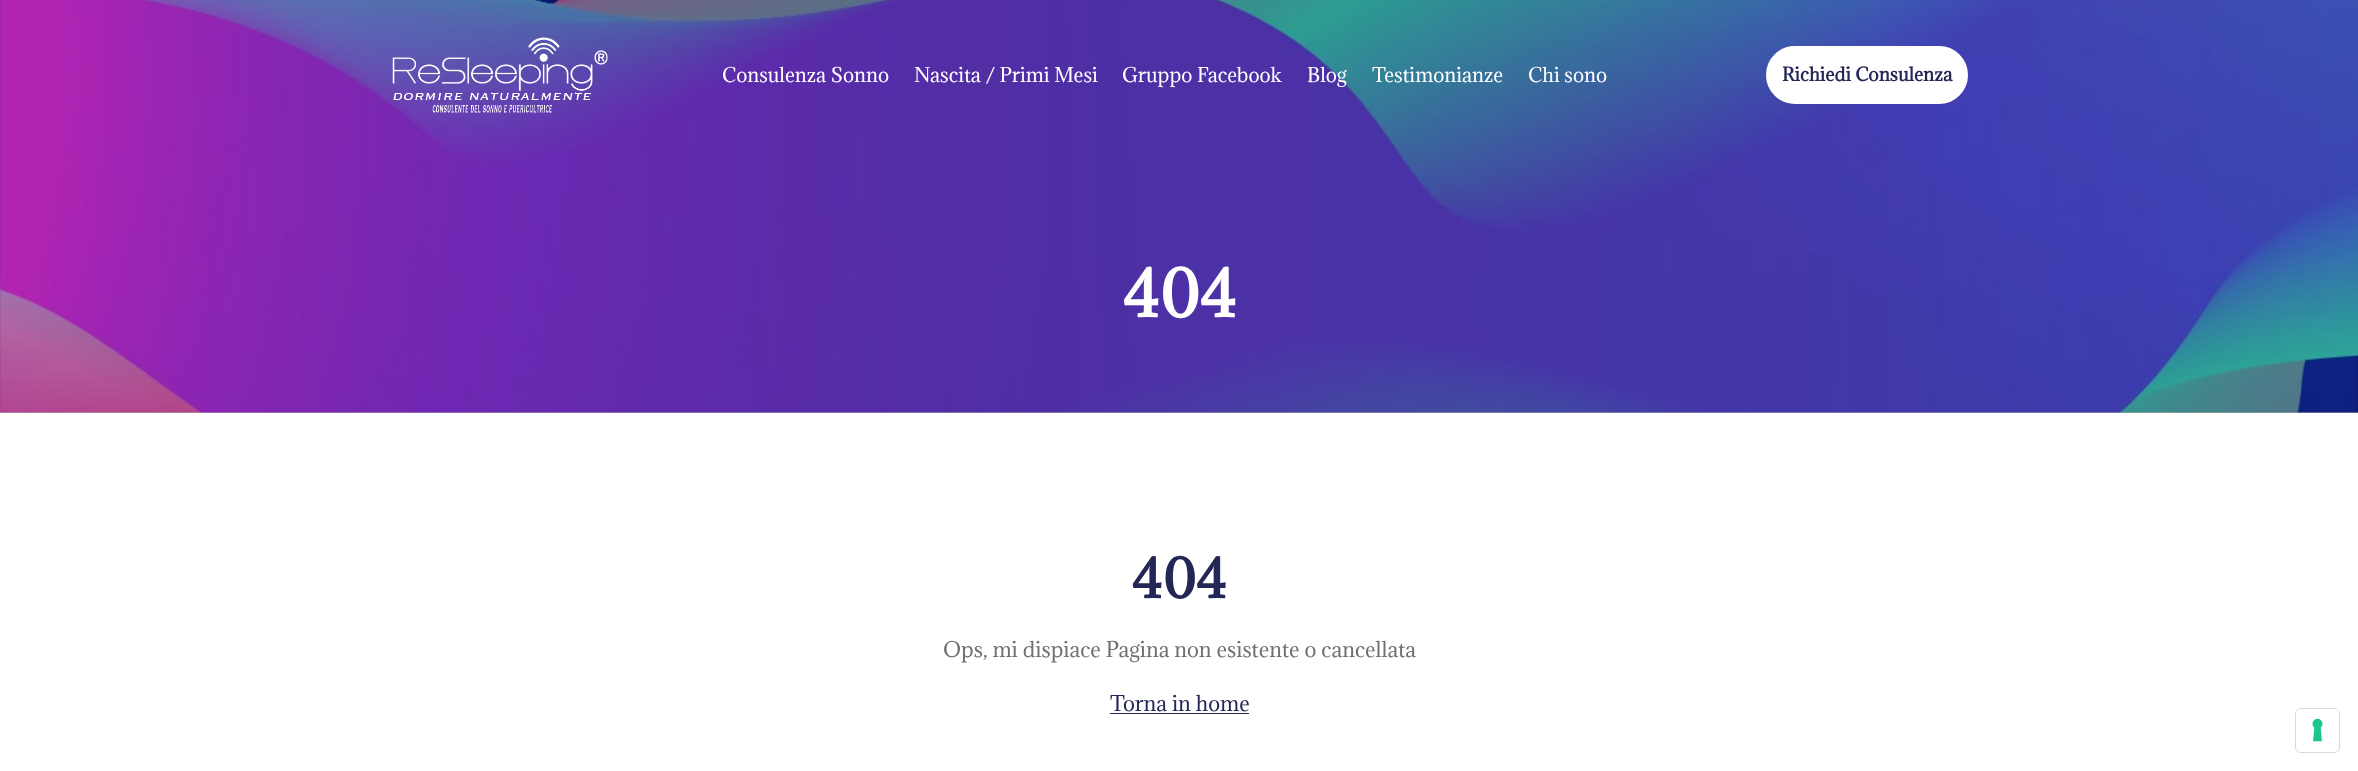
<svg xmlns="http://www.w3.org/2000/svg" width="2358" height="771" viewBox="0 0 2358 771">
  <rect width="100%" height="100%" fill="rgb(255,255,255)"/>
  <rect x="0" y="412" width="2358" height="1" fill="rgb(179,179,179)"/>
  <image x="0" y="0" width="2358" height="413" href="pic2.png"/>
  <image x="392" y="37" width="216" height="76" href="pic1.png"/>
  <g font-family="Adamina" font-size="18.75" fill="rgb(255,255,255)">
    <text x="722" y="82">Consulenza Sonno</text>
    <text x="914" y="82">Nascita / Primi Mesi</text>
    <text x="1122" y="82">Gruppo Facebook</text>
    <text x="1307" y="82">Blog</text>
    <text x="1372" y="82">Testimonianze</text>
    <text x="1528" y="82">Chi sono</text>
  </g>
  <rect x="1767.5" y="47.5" width="199" height="55" rx="27.5" fill="rgb(255,255,255)" stroke="rgb(255,255,255)" stroke-width="3"/>
  <text x="1782" y="81" font-family="Adamina" font-size="17.5" font-weight="bold" fill="rgb(36,38,86)">Richiedi Consulenza</text>
  <text x="1123" y="317" font-family="Adamina" font-size="60" font-weight="bold" fill="rgb(255,255,255)">404</text>
  <text x="1132" y="598" font-family="Adamina" font-size="50" font-weight="bold" fill="rgb(36,38,86)">404</text>
  <text x="943" y="657" font-family="Adamina" font-size="20" fill="rgb(112,112,112)">Ops, mi dispiace Pagina non esistente o cancellata</text>
  <text x="1110" y="711" font-family="Adamina" font-size="20" fill="rgb(36,38,86)">Torna in home</text>
  <rect x="1110" y="713" width="139" height="1" fill="rgb(36,38,86)"/>
  <rect x="2295.5" y="708.5" width="44" height="44" rx="5.5" fill="none" stroke="rgb(217,217,217)"/>
  <rect x="2296" y="709" width="43" height="42" rx="5" fill="rgb(255,255,255)"/>
  <image x="2312" y="718" width="11" height="24" href="pic3.png"/>
</svg>
